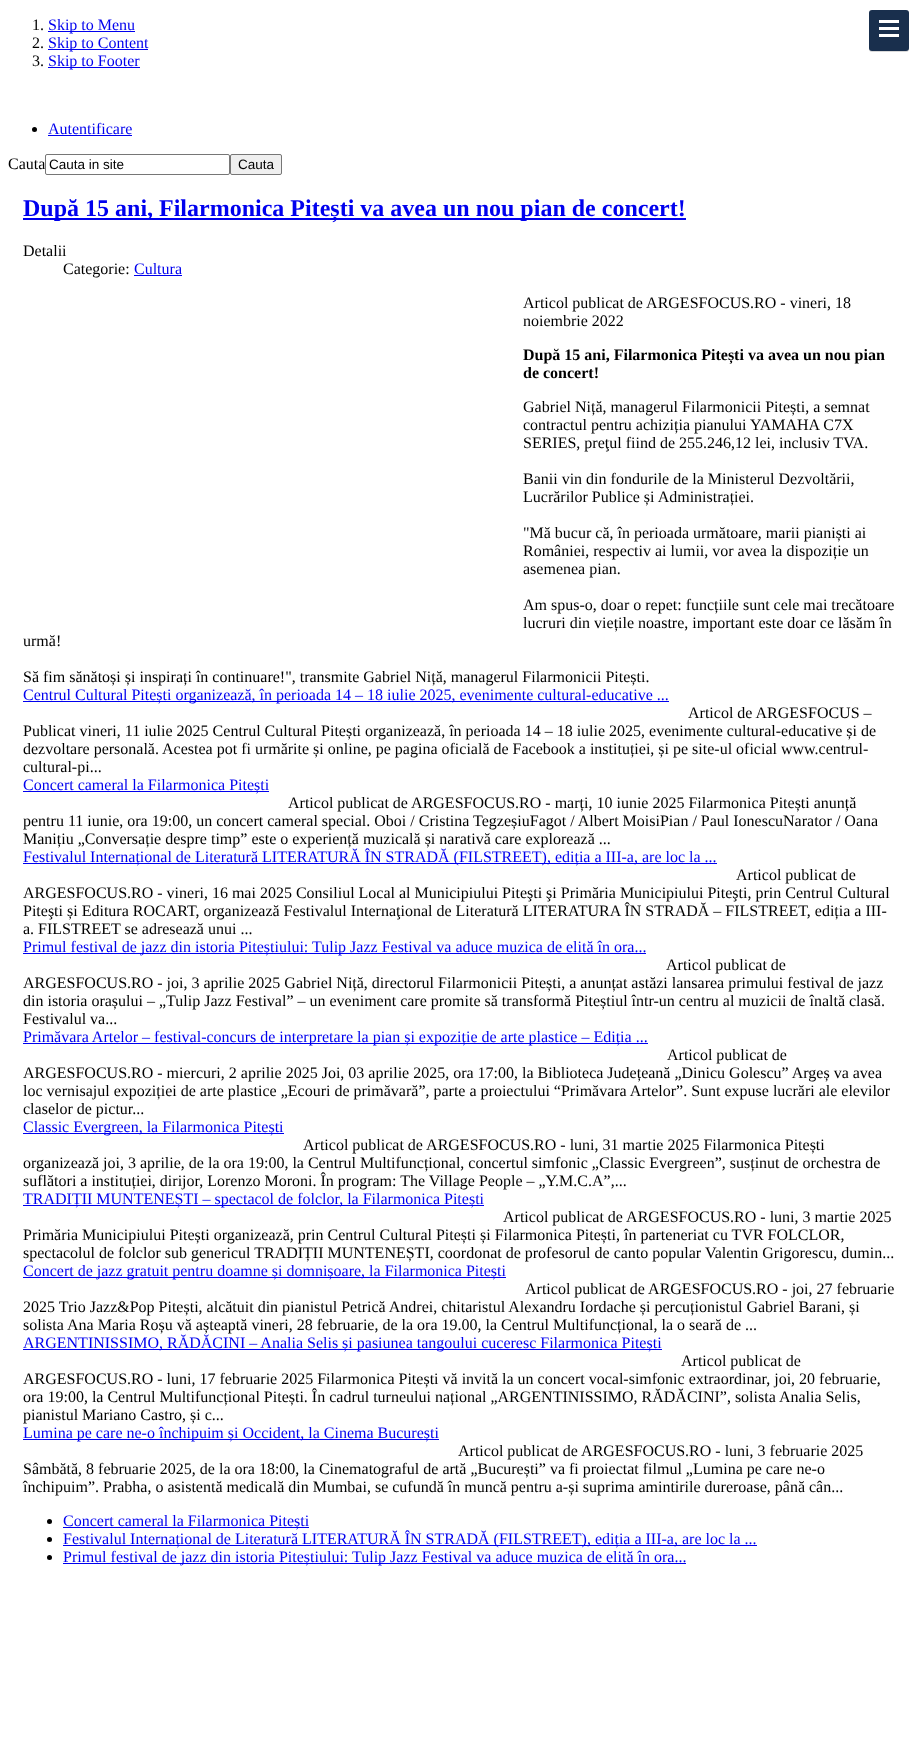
<svg xmlns="http://www.w3.org/2000/svg" width="919" height="1754" viewBox="0 0 919 1754">
  <rect width="100%" height="100%" fill="rgb(255,255,255)"/>
  <text x="32" y="30" font-family="Liberation Serif" font-size="16" fill="rgb(0,0,0)">1.</text>
  <rect x="48" y="31" width="87" height="1" fill="rgb(0,0,238)"/>
  <text x="48" y="30" font-family="Liberation Serif" font-size="16" fill="rgb(0,0,238)">Skip to Menu</text>
  <text x="32" y="48" font-family="Liberation Serif" font-size="16" fill="rgb(0,0,0)">2.</text>
  <rect x="48" y="49" width="100" height="1" fill="rgb(0,0,238)"/>
  <text x="48" y="48" font-family="Liberation Serif" font-size="16" fill="rgb(0,0,238)">Skip to Content</text>
  <text x="32" y="66" font-family="Liberation Serif" font-size="16" fill="rgb(0,0,0)">3.</text>
  <rect x="48" y="67" width="92" height="1" fill="rgb(0,0,238)"/>
  <text x="48" y="66" font-family="Liberation Serif" font-size="16" fill="rgb(0,0,238)">Skip to Footer</text>
  <rect x="869" y="11" width="40" height="41" rx="3" fill="rgba(0,0,0,0.15)" filter="blur(0.5px)"/>
  <rect x="869" y="10" width="40" height="41" rx="3" fill="rgb(25,47,77)"/>
  <rect x="879" y="20" width="20" height="3" fill="rgb(255,255,255)"/>
  <rect x="879" y="27" width="20" height="3" fill="rgb(255,255,255)"/>
  <rect x="879" y="34" width="20" height="3" fill="rgb(255,255,255)"/>
  <circle cx="34.5" cy="129.5" r="2.5" fill="rgb(0,0,0)"/>
  <text x="48" y="134" font-family="Liberation Serif" font-size="16" fill="rgb(0,0,238)">Autentificare</text>
  <rect x="48" y="135" width="84" height="1" fill="rgb(0,0,238)"/>
  <text x="8" y="169" font-family="Liberation Serif" font-size="16" fill="rgb(0,0,0)">Cauta</text>
  <rect x="45.5" y="154.5" width="184" height="20" rx="1.5" fill="rgb(255,255,255)" stroke="rgb(118,118,118)"/>
  <text x="49" y="169" font-family="Liberation Sans" font-size="13.5" fill="rgb(0,0,0)">Cauta in site</text>
  <rect x="230.5" y="154.5" width="51" height="20" rx="1.5" fill="rgb(239,239,239)" stroke="rgb(118,118,118)"/>
  <text x="238" y="169" font-family="Liberation Sans" font-size="13.5" fill="rgb(0,0,0)">Cauta</text>
  <rect x="23" y="218" width="663" height="2" fill="rgb(0,0,238)"/>
  <text x="23" y="216" font-family="Liberation Serif" font-size="24" font-weight="bold" fill="rgb(0,0,238)">După 15 ani, Filarmonica Pitești va avea un nou pian de concert!</text>
  <g font-family="Liberation Serif" font-size="16" fill="rgb(0,0,0)">
    <text x="23" y="256">Detalii</text>
    <text x="63" y="274">Categorie:</text>
  </g>
  <text x="134" y="274" font-family="Liberation Serif" font-size="16" fill="rgb(0,0,238)">Cultura</text>
  <rect x="134" y="275" width="48" height="1" fill="rgb(0,0,238)"/>
  <g font-family="Liberation Serif" font-size="16" fill="rgb(0,0,0)">
    <text>
      <tspan x="523" y="308">Articol publicat de ARGESFOCUS.RO - vineri, 18</tspan>
      <tspan x="523" y="326">noiembrie 2022</tspan>
    </text>
  </g>
  <g font-family="Liberation Serif" font-size="16" font-weight="bold" fill="rgb(0,0,0)">
    <text>
      <tspan x="523" y="360">După 15 ani, Filarmonica Pitești va avea un nou pian</tspan>
      <tspan x="523" y="378">de concert!</tspan>
    </text>
  </g>
  <g font-family="Liberation Serif" font-size="16" fill="rgb(0,0,0)">
    <text>
      <tspan x="523" y="412">Gabriel Niță, managerul Filarmonicii Pitești, a semnat</tspan>
      <tspan x="523" y="430">contractul pentru achiziția pianului YAMAHA C7X</tspan>
      <tspan x="523" y="448">SERIES, preţul fiind de 255.246,12 lei, inclusiv TVA.</tspan>
    </text>
    <text>
      <tspan x="523" y="484">Banii vin din fondurile de la Ministerul Dezvoltării,</tspan>
      <tspan x="523" y="502">Lucrărilor Publice și Administrației.</tspan>
    </text>
    <text>
      <tspan x="523" y="538">"Mă bucur că, în perioada următoare, marii pianiști ai</tspan>
      <tspan x="523" y="556">României, respectiv ai lumii, vor avea la dispoziție un</tspan>
      <tspan x="523" y="574">asemenea pian.</tspan>
    </text>
    <text>
      <tspan x="523" y="610">Am spus-o, doar o repet: funcțiile sunt cele mai trecătoare</tspan>
      <tspan x="523" y="628">lucruri din viețile noastre, important este doar ce lăsăm în</tspan>
    </text>
    <text x="23" y="646">urmă!</text>
    <text x="23" y="682">Să fim sănătoși și inspirați în continuare!", transmite Gabriel Niță, managerul Filarmonicii Pitești.</text>
  </g>
  <rect x="23" y="701" width="646" height="1" fill="rgb(0,0,238)"/>
  <text x="23" y="700" font-family="Liberation Serif" font-size="16" fill="rgb(0,0,238)">Centrul Cultural Pitești organizează, în perioada 14 – 18 iulie 2025, evenimente cultural-educative ...</text>
  <g font-family="Liberation Serif" font-size="16" fill="rgb(0,0,0)">
    <text x="688" y="718">Articol de ARGESFOCUS –</text>
    <text>
      <tspan x="23" y="736">Publicat vineri, 11 iulie 2025 Centrul Cultural Pitești organizează, în perioada 14 – 18 iulie 2025, evenimente cultural-educative și de</tspan>
      <tspan x="23" y="754">dezvoltare personală. Acestea pot fi urmărite și online, pe pagina oficială de Facebook a instituției, și pe site-ul oficial www.centrul-</tspan>
      <tspan x="23" y="772">cultural-pi...</tspan>
    </text>
  </g>
  <rect x="23" y="791" width="246" height="1" fill="rgb(0,0,238)"/>
  <text x="23" y="790" font-family="Liberation Serif" font-size="16" fill="rgb(0,0,238)">Concert cameral la Filarmonica Pitești</text>
  <g font-family="Liberation Serif" font-size="16" fill="rgb(0,0,0)">
    <text x="288" y="808">Articol publicat de ARGESFOCUS.RO - marți, 10 iunie 2025 Filarmonica Pitești anunță</text>
    <text>
      <tspan x="23" y="826">pentru 11 iunie, ora 19:00, un concert cameral special. Oboi / Cristina TegzeșiuFagot / Albert MoisiPian / Paul IonescuNarator / Oana</tspan>
      <tspan x="23" y="844">Manițiu „Conversație despre timp” este o experiență muzicală și narativă care explorează ...</tspan>
    </text>
  </g>
  <rect x="23" y="863" width="694" height="1" fill="rgb(0,0,238)"/>
  <text x="23" y="862" font-family="Liberation Serif" font-size="16" fill="rgb(0,0,238)">Festivalul Internațional de Literatură LITERATURĂ ÎN STRADĂ (FILSTREET), ediția a III-a, are loc la ...</text>
  <g font-family="Liberation Serif" font-size="16" fill="rgb(0,0,0)">
    <text x="736" y="880">Articol publicat de</text>
    <text>
      <tspan x="23" y="898">ARGESFOCUS.RO - vineri, 16 mai 2025 Consiliul Local al Municipiului Piteşti şi Primăria Municipiului Piteşti, prin Centrul Cultural</tspan>
      <tspan x="23" y="916">Piteşti și Editura ROCART, organizează Festivalul Internaţional de Literatură LITERATURA ÎN STRADĂ – FILSTREET, ediția a III-</tspan>
      <tspan x="23" y="934">a. FILSTREET se adresează unui ...</tspan>
    </text>
  </g>
  <rect x="23" y="953" width="623" height="1" fill="rgb(0,0,238)"/>
  <text x="23" y="952" font-family="Liberation Serif" font-size="16" fill="rgb(0,0,238)">Primul festival de jazz din istoria Piteștiului: Tulip Jazz Festival va aduce muzica de elită în ora...</text>
  <g font-family="Liberation Serif" font-size="16" fill="rgb(0,0,0)">
    <text x="666" y="970">Articol publicat de</text>
    <text>
      <tspan x="23" y="988">ARGESFOCUS.RO - joi, 3 aprilie 2025 Gabriel Niță, directorul Filarmonicii Pitești, a anunțat astăzi lansarea primului festival de jazz</tspan>
      <tspan x="23" y="1006">din istoria orașului – „Tulip Jazz Festival” – un eveniment care promite să transformă Piteștiul într-un centru al muzicii de înaltă clasă.</tspan>
      <tspan x="23" y="1024">Festivalul va...</tspan>
    </text>
  </g>
  <rect x="23" y="1043" width="625" height="1" fill="rgb(0,0,238)"/>
  <text x="23" y="1042" font-family="Liberation Serif" font-size="16" fill="rgb(0,0,238)">Primăvara Artelor – festival-concurs de interpretare la pian și expoziție de arte plastice – Ediția ...</text>
  <g font-family="Liberation Serif" font-size="16" fill="rgb(0,0,0)">
    <text x="667" y="1060">Articol publicat de</text>
    <text>
      <tspan x="23" y="1078">ARGESFOCUS.RO - miercuri, 2 aprilie 2025 Joi, 03 aprilie 2025, ora 17:00, la Biblioteca Județeană „Dinicu Golescu” Argeș va avea</tspan>
      <tspan x="23" y="1096">loc vernisajul expoziției de arte plastice „Ecouri de primăvară”, parte a proiectului “Primăvara Artelor”. Sunt expuse lucrări ale elevilor</tspan>
      <tspan x="23" y="1114">claselor de pictur...</tspan>
    </text>
  </g>
  <rect x="23" y="1133" width="261" height="1" fill="rgb(0,0,238)"/>
  <text x="23" y="1132" font-family="Liberation Serif" font-size="16" fill="rgb(0,0,238)">Classic Evergreen, la Filarmonica Pitești</text>
  <g font-family="Liberation Serif" font-size="16" fill="rgb(0,0,0)">
    <text x="303" y="1150">Articol publicat de ARGESFOCUS.RO - luni, 31 martie 2025 Filarmonica Pitești</text>
    <text>
      <tspan x="23" y="1168">organizează joi, 3 aprilie, de la ora 19:00, la Centrul Multifuncțional, concertul simfonic „Classic Evergreen”, susținut de orchestra de</tspan>
      <tspan x="23" y="1186">suflători a instituției, dirijor, Lorenzo Moroni. În program: The Village People – „Y.M.C.A”,...</tspan>
    </text>
  </g>
  <rect x="23" y="1205" width="461" height="1" fill="rgb(0,0,238)"/>
  <text x="23" y="1204" font-family="Liberation Serif" font-size="16" fill="rgb(0,0,238)">TRADIȚII MUNTENEȘTI – spectacol de folclor, la Filarmonica Pitești</text>
  <g font-family="Liberation Serif" font-size="16" fill="rgb(0,0,0)">
    <text x="503" y="1222">Articol publicat de ARGESFOCUS.RO - luni, 3 martie 2025</text>
    <text>
      <tspan x="23" y="1240">Primăria Municipiului Pitești organizează, prin Centrul Cultural Pitești și Filarmonica Pitești, în parteneriat cu TVR FOLCLOR,</tspan>
      <tspan x="23" y="1258">spectacolul de folclor sub genericul TRADIȚII MUNTENEȘTI, coordonat de profesorul de canto popular Valentin Grigorescu, dumin...</tspan>
    </text>
  </g>
  <rect x="23" y="1277" width="483" height="1" fill="rgb(0,0,238)"/>
  <text x="23" y="1276" font-family="Liberation Serif" font-size="16" fill="rgb(0,0,238)">Concert de jazz gratuit pentru doamne și domnișoare, la Filarmonica Pitești</text>
  <g font-family="Liberation Serif" font-size="16" fill="rgb(0,0,0)">
    <text x="525" y="1294">Articol publicat de ARGESFOCUS.RO - joi, 27 februarie</text>
    <text>
      <tspan x="23" y="1312">2025 Trio Jazz&amp;Pop Pitești, alcătuit din pianistul Petrică Andrei, chitaristul Alexandru Iordache și percuționistul Gabriel Barani, și</tspan>
      <tspan x="23" y="1330">solista Ana Maria Roșu vă așteaptă vineri, 28 februarie, de la ora 19.00, la Centrul Multifuncțional, la o seară de ...</tspan>
    </text>
  </g>
  <rect x="23" y="1349" width="639" height="1" fill="rgb(0,0,238)"/>
  <text x="23" y="1348" font-family="Liberation Serif" font-size="16" fill="rgb(0,0,238)">ARGENTINISSIMO, RĂDĂCINI – Analia Selis și pasiunea tangoului cuceresc Filarmonica Pitești</text>
  <g font-family="Liberation Serif" font-size="16" fill="rgb(0,0,0)">
    <text x="681" y="1366">Articol publicat de</text>
    <text>
      <tspan x="23" y="1384">ARGESFOCUS.RO - luni, 17 februarie 2025 Filarmonica Pitești vă invită la un concert vocal-simfonic extraordinar, joi, 20 februarie,</tspan>
      <tspan x="23" y="1402">ora 19:00, la Centrul Multifuncțional Pitești. În cadrul turneului național „ARGENTINISSIMO, RĂDĂCINI”, solista Analia Selis,</tspan>
      <tspan x="23" y="1420">pianistul Mariano Castro, și c...</tspan>
    </text>
  </g>
  <rect x="23" y="1439" width="416" height="1" fill="rgb(0,0,238)"/>
  <text x="23" y="1438" font-family="Liberation Serif" font-size="16" fill="rgb(0,0,238)">Lumina pe care ne-o închipuim și Occident, la Cinema București</text>
  <g font-family="Liberation Serif" font-size="16" fill="rgb(0,0,0)">
    <text x="458" y="1456">Articol publicat de ARGESFOCUS.RO - luni, 3 februarie 2025</text>
    <text>
      <tspan x="23" y="1474">Sâmbătă, 8 februarie 2025, de la ora 18:00, la Cinematograful de artă „București” va fi proiectat filmul „Lumina pe care ne-o</tspan>
      <tspan x="23" y="1492">închipuim”. Prabha, o asistentă medicală din Mumbai, se cufundă în muncă pentru a-și suprima amintirile dureroase, până cân...</tspan>
    </text>
  </g>
  <circle cx="49.5" cy="1521.5" r="2.5" fill="rgb(0,0,0)"/>
  <rect x="63" y="1527" width="246" height="1" fill="rgb(0,0,238)"/>
  <text x="63" y="1526" font-family="Liberation Serif" font-size="16" fill="rgb(0,0,238)">Concert cameral la Filarmonica Pitești</text>
  <circle cx="49.5" cy="1539.5" r="2.5" fill="rgb(0,0,0)"/>
  <rect x="63" y="1545" width="694" height="1" fill="rgb(0,0,238)"/>
  <text x="63" y="1544" font-family="Liberation Serif" font-size="16" fill="rgb(0,0,238)">Festivalul Internațional de Literatură LITERATURĂ ÎN STRADĂ (FILSTREET), ediția a III-a, are loc la ...</text>
  <circle cx="49.5" cy="1557.5" r="2.5" fill="rgb(0,0,0)"/>
  <rect x="63" y="1563" width="623" height="1" fill="rgb(0,0,238)"/>
  <text x="63" y="1562" font-family="Liberation Serif" font-size="16" fill="rgb(0,0,238)">Primul festival de jazz din istoria Piteștiului: Tulip Jazz Festival va aduce muzica de elită în ora...</text>
</svg>
